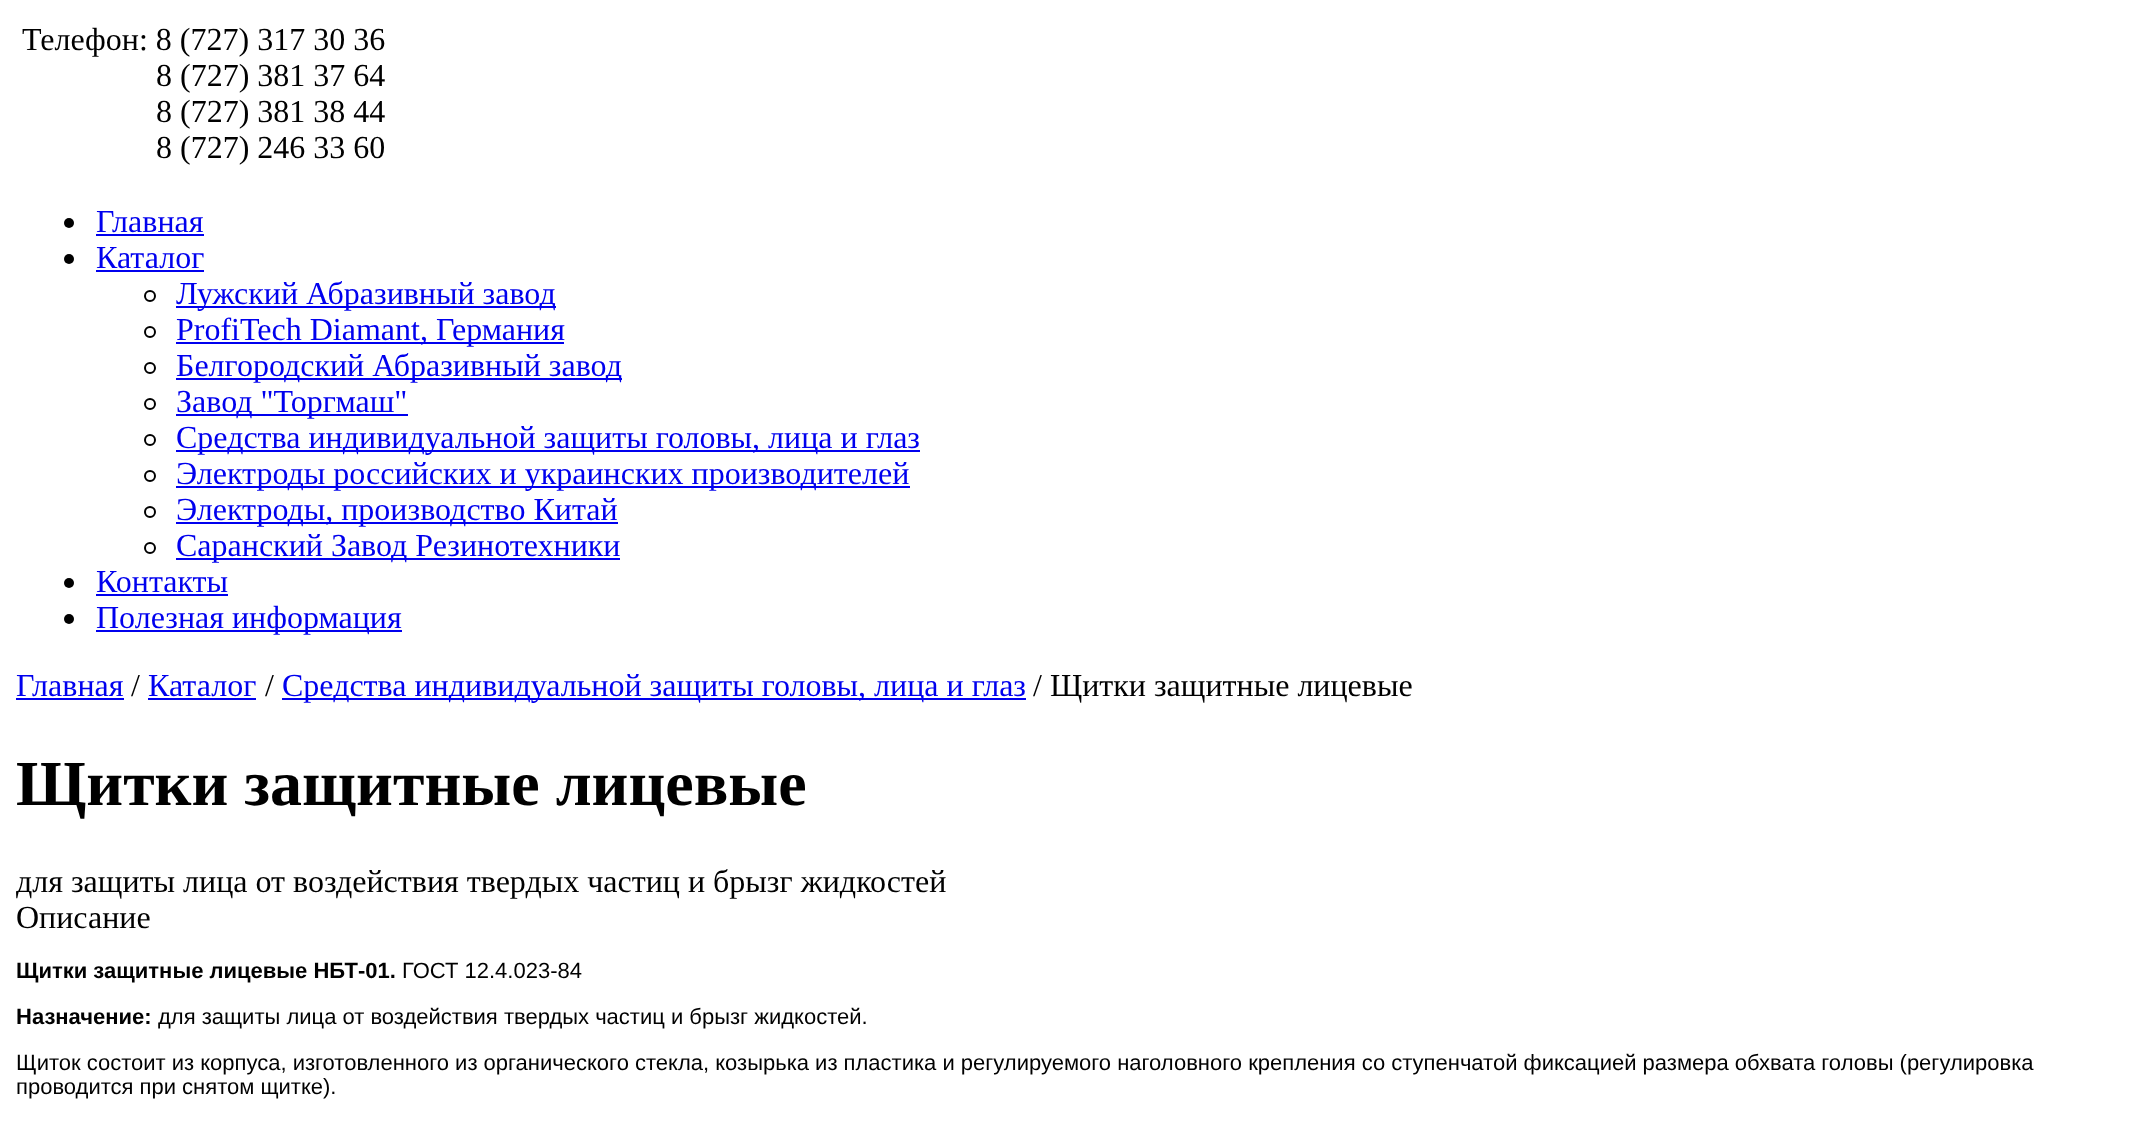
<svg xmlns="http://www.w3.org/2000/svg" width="2140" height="1134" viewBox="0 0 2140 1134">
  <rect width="100%" height="100%" fill="rgb(255,255,255)"/>
  <g font-family="Liberation Serif" font-size="32" fill="rgb(0,0,0)">
    <text x="22" y="50">Телефон: 8 (727) 317 30 36</text>
    <text>
      <tspan x="156" y="86">8 (727) 381 37 64</tspan>
      <tspan x="156" y="122">8 (727) 381 38 44</tspan>
      <tspan x="156" y="158">8 (727) 246 33 60</tspan>
    </text>
  </g>
  <circle cx="69" cy="223" r="5" fill="rgb(0,0,0)"/>
  <text x="96" y="232" font-family="Liberation Serif" font-size="32" fill="rgb(0,0,238)">Главная</text>
  <rect x="96" y="234" width="108" height="2" fill="rgb(0,0,238)"/>
  <circle cx="69" cy="259" r="5" fill="rgb(0,0,0)"/>
  <text x="96" y="268" font-family="Liberation Serif" font-size="32" fill="rgb(0,0,238)">Каталог</text>
  <rect x="96" y="270" width="108" height="2" fill="rgb(0,0,238)"/>
  <circle cx="150" cy="296" r="5" fill="none" stroke="rgb(0,0,0)" stroke-width="2"/>
  <rect x="176" y="306" width="380" height="2" fill="rgb(0,0,238)"/>
  <text x="176" y="304" font-family="Liberation Serif" font-size="32" fill="rgb(0,0,238)">Лужский Абразивный завод</text>
  <circle cx="150" cy="332" r="5" fill="none" stroke="rgb(0,0,0)" stroke-width="2"/>
  <rect x="176" y="342" width="388" height="2" fill="rgb(0,0,238)"/>
  <text x="176" y="340" font-family="Liberation Serif" font-size="32" fill="rgb(0,0,238)">ProfiTech Diamant, Германия</text>
  <circle cx="150" cy="368" r="5" fill="none" stroke="rgb(0,0,0)" stroke-width="2"/>
  <rect x="176" y="378" width="446" height="2" fill="rgb(0,0,238)"/>
  <text x="176" y="376" font-family="Liberation Serif" font-size="32" fill="rgb(0,0,238)">Белгородский Абразивный завод</text>
  <circle cx="150" cy="404" r="5" fill="none" stroke="rgb(0,0,0)" stroke-width="2"/>
  <rect x="176" y="414" width="232" height="2" fill="rgb(0,0,238)"/>
  <text x="176" y="412" font-family="Liberation Serif" font-size="32" fill="rgb(0,0,238)">Завод "Торгмаш"</text>
  <circle cx="150" cy="440" r="5" fill="none" stroke="rgb(0,0,0)" stroke-width="2"/>
  <rect x="176" y="450" width="744" height="2" fill="rgb(0,0,238)"/>
  <text x="176" y="448" font-family="Liberation Serif" font-size="32" fill="rgb(0,0,238)">Средства индивидуальной защиты головы, лица и глаз</text>
  <circle cx="150" cy="476" r="5" fill="none" stroke="rgb(0,0,0)" stroke-width="2"/>
  <rect x="176" y="486" width="734" height="2" fill="rgb(0,0,238)"/>
  <text x="176" y="484" font-family="Liberation Serif" font-size="32" fill="rgb(0,0,238)">Электроды российских и украинских производителей</text>
  <circle cx="150" cy="512" r="5" fill="none" stroke="rgb(0,0,0)" stroke-width="2"/>
  <rect x="176" y="522" width="442" height="2" fill="rgb(0,0,238)"/>
  <text x="176" y="520" font-family="Liberation Serif" font-size="32" fill="rgb(0,0,238)">Электроды, производство Китай</text>
  <circle cx="150" cy="548" r="5" fill="none" stroke="rgb(0,0,0)" stroke-width="2"/>
  <rect x="176" y="558" width="444" height="2" fill="rgb(0,0,238)"/>
  <text x="176" y="556" font-family="Liberation Serif" font-size="32" fill="rgb(0,0,238)">Саранский Завод Резинотехники</text>
  <circle cx="69" cy="583" r="5" fill="rgb(0,0,0)"/>
  <text x="96" y="592" font-family="Liberation Serif" font-size="32" fill="rgb(0,0,238)">Контакты</text>
  <rect x="96" y="594" width="132" height="2" fill="rgb(0,0,238)"/>
  <circle cx="69" cy="619" r="5" fill="rgb(0,0,0)"/>
  <rect x="96" y="630" width="306" height="2" fill="rgb(0,0,238)"/>
  <g font-family="Liberation Serif" font-size="32" fill="rgb(0,0,238)">
    <text x="96" y="628">Полезная информация</text>
    <text x="16" y="696">Главная</text>
  </g>
  <rect x="16" y="698" width="108" height="2" fill="rgb(0,0,238)"/>
  <text x="131" y="696" font-family="Liberation Serif" font-size="32" fill="rgb(0,0,0)">/</text>
  <text x="148" y="696" font-family="Liberation Serif" font-size="32" fill="rgb(0,0,238)">Каталог</text>
  <rect x="148" y="698" width="108" height="2" fill="rgb(0,0,238)"/>
  <text x="265" y="696" font-family="Liberation Serif" font-size="32" fill="rgb(0,0,0)">/</text>
  <rect x="282" y="698" width="744" height="2" fill="rgb(0,0,238)"/>
  <text x="282" y="696" font-family="Liberation Serif" font-size="32" fill="rgb(0,0,238)">Средства индивидуальной защиты головы, лица и глаз</text>
  <text x="1033" y="696" font-family="Liberation Serif" font-size="32" fill="rgb(0,0,0)">/ Щитки защитные лицевые</text>
  <text x="16" y="805" font-family="Liberation Serif" font-size="64" font-weight="bold" fill="rgb(0,0,0)">Щитки защитные лицевые</text>
  <g font-family="Liberation Serif" font-size="32" fill="rgb(0,0,0)">
    <text>
      <tspan x="16" y="892">для защиты лица от воздействия твердых частиц и брызг жидкостей</tspan>
      <tspan x="16" y="928">Описание</tspan>
    </text>
  </g>
  <text x="16" y="978" font-family="Liberation Sans" font-size="22" font-weight="bold" fill="rgb(0,0,0)">Щитки защитные лицевые НБТ-01.</text>
  <text x="402" y="978" font-family="Liberation Sans" font-size="22" fill="rgb(0,0,0)">ГОСТ 12.4.023-84</text>
  <text x="16" y="1024" font-family="Liberation Sans" font-size="22" font-weight="bold" fill="rgb(0,0,0)">Назначение:</text>
  <g font-family="Liberation Sans" font-size="22" fill="rgb(0,0,0)">
    <text x="158" y="1024">для защиты лица от воздействия твердых частиц и брызг жидкостей.</text>
    <text>
      <tspan x="16" y="1070">Щиток состоит из корпуса, изготовленного из органического стекла, козырька из пластика и регулируемого наголовного крепления со ступенчатой фиксацией размера обхвата головы (регулировка</tspan>
      <tspan x="16" y="1094">проводится при снятом щитке).</tspan>
    </text>
  </g>
</svg>
